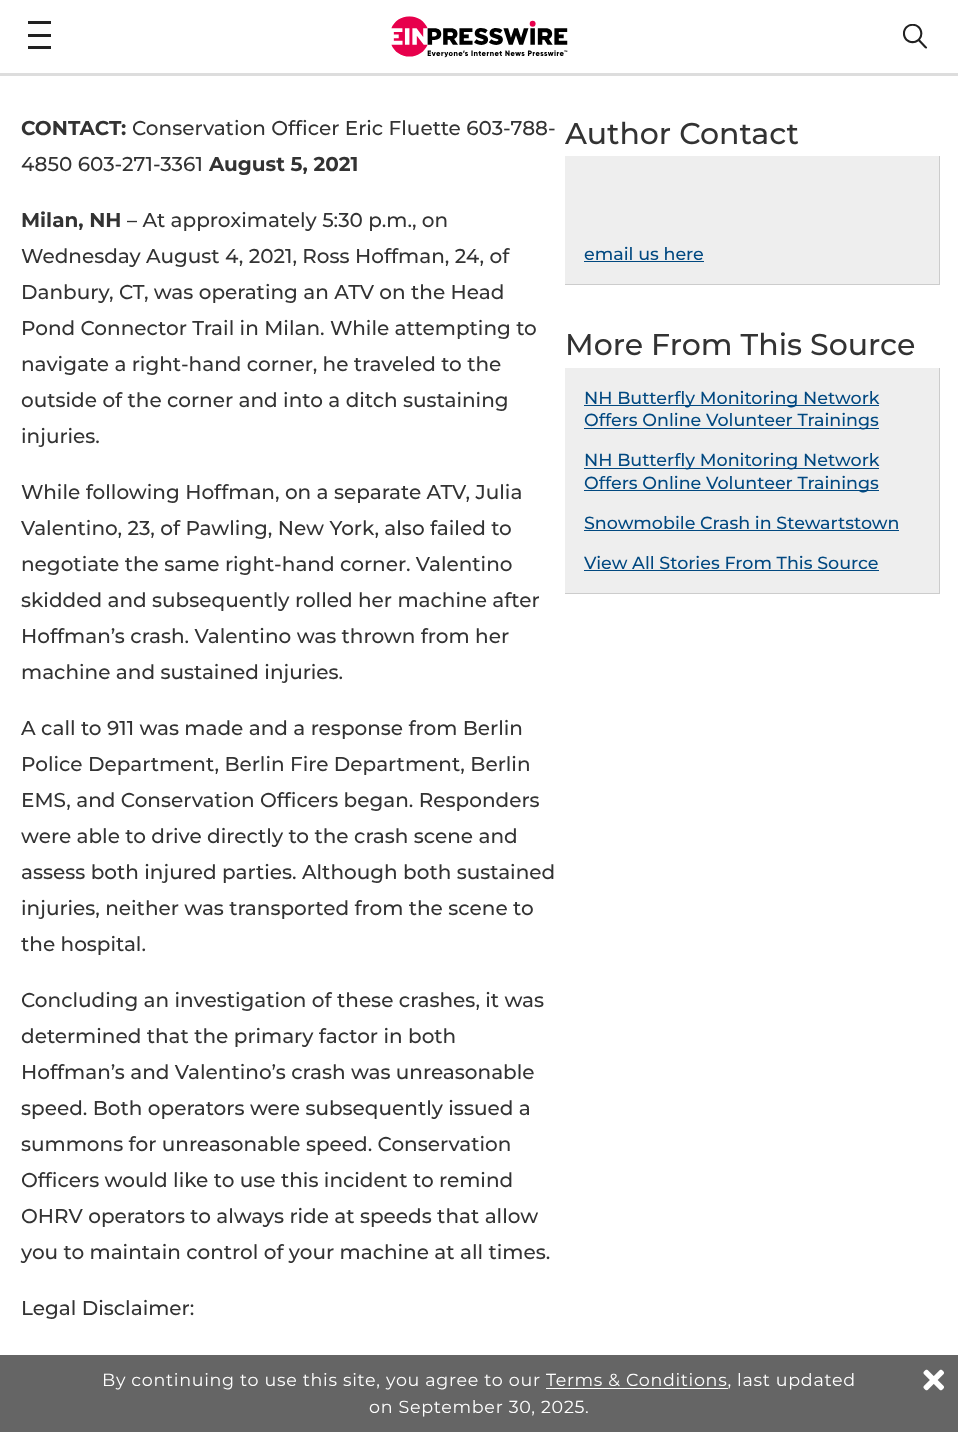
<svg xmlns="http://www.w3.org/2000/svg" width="958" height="1432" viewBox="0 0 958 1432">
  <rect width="100%" height="100%" fill="rgb(255,255,255)"/>
  <rect x="0" y="73" width="958" height="3" fill="rgb(221,221,221)"/>
  <rect x="28" y="21" width="23" height="3" fill="rgb(33,33,33)"/>
  <rect x="28" y="34" width="23" height="3" fill="rgb(33,33,33)"/>
  <rect x="28" y="46" width="23" height="3" fill="rgb(33,33,33)"/>
  <image x="391" y="16" width="177" height="42" href="pic1.png"/>
  <image x="902" y="24" width="26" height="25" href="pic2.png"/>
  <text x="21" y="135" font-family="Montserrat" font-size="20" font-weight="bold" fill="rgb(51,51,51)">CONTACT:</text>
  <g font-family="Montserrat" font-size="20" font-weight="500" fill="rgb(51,51,51)">
    <text x="132" y="135">Conservation Officer Eric Fluette 603-788-</text>
    <text x="21" y="171">4850 603-271-3361</text>
  </g>
  <g font-family="Montserrat" font-size="20" font-weight="bold" fill="rgb(51,51,51)">
    <text x="209" y="171">August 5, 2021</text>
    <text x="21" y="227">Milan, NH</text>
  </g>
  <g font-family="Montserrat" font-size="20" font-weight="500" fill="rgb(51,51,51)">
    <text x="127" y="227">– At approximately 5:30 p.m., on</text>
    <text>
      <tspan x="21" y="263">Wednesday August 4, 2021, Ross Hoffman, 24, of</tspan>
      <tspan x="21" y="299">Danbury, CT, was operating an ATV on the Head</tspan>
      <tspan x="21" y="335">Pond Connector Trail in Milan. While attempting to</tspan>
      <tspan x="21" y="371">navigate a right-hand corner, he traveled to the</tspan>
      <tspan x="21" y="407">outside of the corner and into a ditch sustaining</tspan>
      <tspan x="21" y="443">injuries.</tspan>
    </text>
    <text>
      <tspan x="21" y="499">While following Hoffman, on a separate ATV, Julia</tspan>
      <tspan x="21" y="535">Valentino, 23, of Pawling, New York, also failed to</tspan>
      <tspan x="21" y="571">negotiate the same right-hand corner. Valentino</tspan>
      <tspan x="21" y="607">skidded and subsequently rolled her machine after</tspan>
      <tspan x="21" y="643">Hoffman’s crash. Valentino was thrown from her</tspan>
      <tspan x="21" y="679">machine and sustained injuries.</tspan>
    </text>
    <text>
      <tspan x="21" y="735">A call to 911 was made and a response from Berlin</tspan>
      <tspan x="21" y="771">Police Department, Berlin Fire Department, Berlin</tspan>
      <tspan x="21" y="807">EMS, and Conservation Officers began. Responders</tspan>
      <tspan x="21" y="843">were able to drive directly to the crash scene and</tspan>
      <tspan x="21" y="879">assess both injured parties. Although both sustained</tspan>
      <tspan x="21" y="915">injuries, neither was transported from the scene to</tspan>
      <tspan x="21" y="951">the hospital.</tspan>
    </text>
    <text>
      <tspan x="21" y="1007">Concluding an investigation of these crashes, it was</tspan>
      <tspan x="21" y="1043">determined that the primary factor in both</tspan>
      <tspan x="21" y="1079">Hoffman’s and Valentino’s crash was unreasonable</tspan>
      <tspan x="21" y="1115">speed. Both operators were subsequently issued a</tspan>
      <tspan x="21" y="1151">summons for unreasonable speed. Conservation</tspan>
      <tspan x="21" y="1187">Officers would like to use this incident to remind</tspan>
      <tspan x="21" y="1223">OHRV operators to always ride at speeds that allow</tspan>
      <tspan x="21" y="1259">you to maintain control of your machine at all times.</tspan>
    </text>
    <text x="21" y="1315">Legal Disclaimer:</text>
  </g>
  <text x="565" y="144" font-family="Montserrat" font-size="30" font-weight="500" fill="rgb(51,51,51)">Author Contact</text>
  <rect x="565" y="156" width="374" height="128" fill="rgb(238,238,238)"/>
  <rect x="939" y="156" width="1" height="129" fill="rgb(204,204,204)"/>
  <rect x="565" y="284" width="375" height="1" fill="rgb(204,204,204)"/>
  <text x="584" y="260" font-family="Montserrat" font-size="17.5" font-weight="500" fill="rgb(1,72,128)">email us here</text>
  <rect x="584" y="261" width="120" height="1" fill="rgb(1,72,128)"/>
  <text x="565" y="355" font-family="Montserrat" font-size="30" font-weight="500" fill="rgb(51,51,51)">More From This Source</text>
  <rect x="565" y="368" width="374" height="225" fill="rgb(238,238,238)"/>
  <rect x="939" y="368" width="1" height="226" fill="rgb(204,204,204)"/>
  <rect x="565" y="593" width="375" height="1" fill="rgb(204,204,204)"/>
  <rect x="584" y="405" width="295" height="1" fill="rgb(1,72,128)"/>
  <text x="584" y="404" font-family="Montserrat" font-size="17.5" font-weight="500" fill="rgb(1,72,128)">NH Butterfly Monitoring Network</text>
  <rect x="584" y="428" width="295" height="1" fill="rgb(1,72,128)"/>
  <text x="584" y="426" font-family="Montserrat" font-size="17.5" font-weight="500" fill="rgb(1,72,128)">Offers Online Volunteer Trainings</text>
  <rect x="584" y="468" width="295" height="1" fill="rgb(1,72,128)"/>
  <text x="584" y="466" font-family="Montserrat" font-size="17.5" font-weight="500" fill="rgb(1,72,128)">NH Butterfly Monitoring Network</text>
  <rect x="584" y="490" width="295" height="1" fill="rgb(1,72,128)"/>
  <g font-family="Montserrat" font-size="17.5" font-weight="500" fill="rgb(1,72,128)">
    <text x="584" y="489">Offers Online Volunteer Trainings</text>
    <text x="584" y="529">Snowmobile Crash in Stewartstown</text>
  </g>
  <rect x="584" y="530" width="315" height="1" fill="rgb(1,72,128)"/>
  <text x="584" y="569" font-family="Montserrat" font-size="17.5" font-weight="500" fill="rgb(1,72,128)">View All Stories From This Source</text>
  <rect x="584" y="570" width="295" height="1" fill="rgb(1,72,128)"/>
  <rect x="0" y="1355" width="958" height="77" fill="rgb(101,101,101)"/>
  <text x="102" y="1386" font-family="Montserrat" font-size="17.5" letter-spacing="0.7" fill="rgb(255,255,255)">By continuing to use this site, you agree to our Terms &amp; Conditions, last updated</text>
  <rect x="546" y="1388" width="182" height="1" fill="rgb(255,255,255)"/>
  <text x="369" y="1413" font-family="Montserrat" font-size="17.5" letter-spacing="0.7" fill="rgb(255,255,255)">on September 30, 2025.</text>
  <image x="923" y="1369" width="21" height="22" href="pic3.png"/>
</svg>
